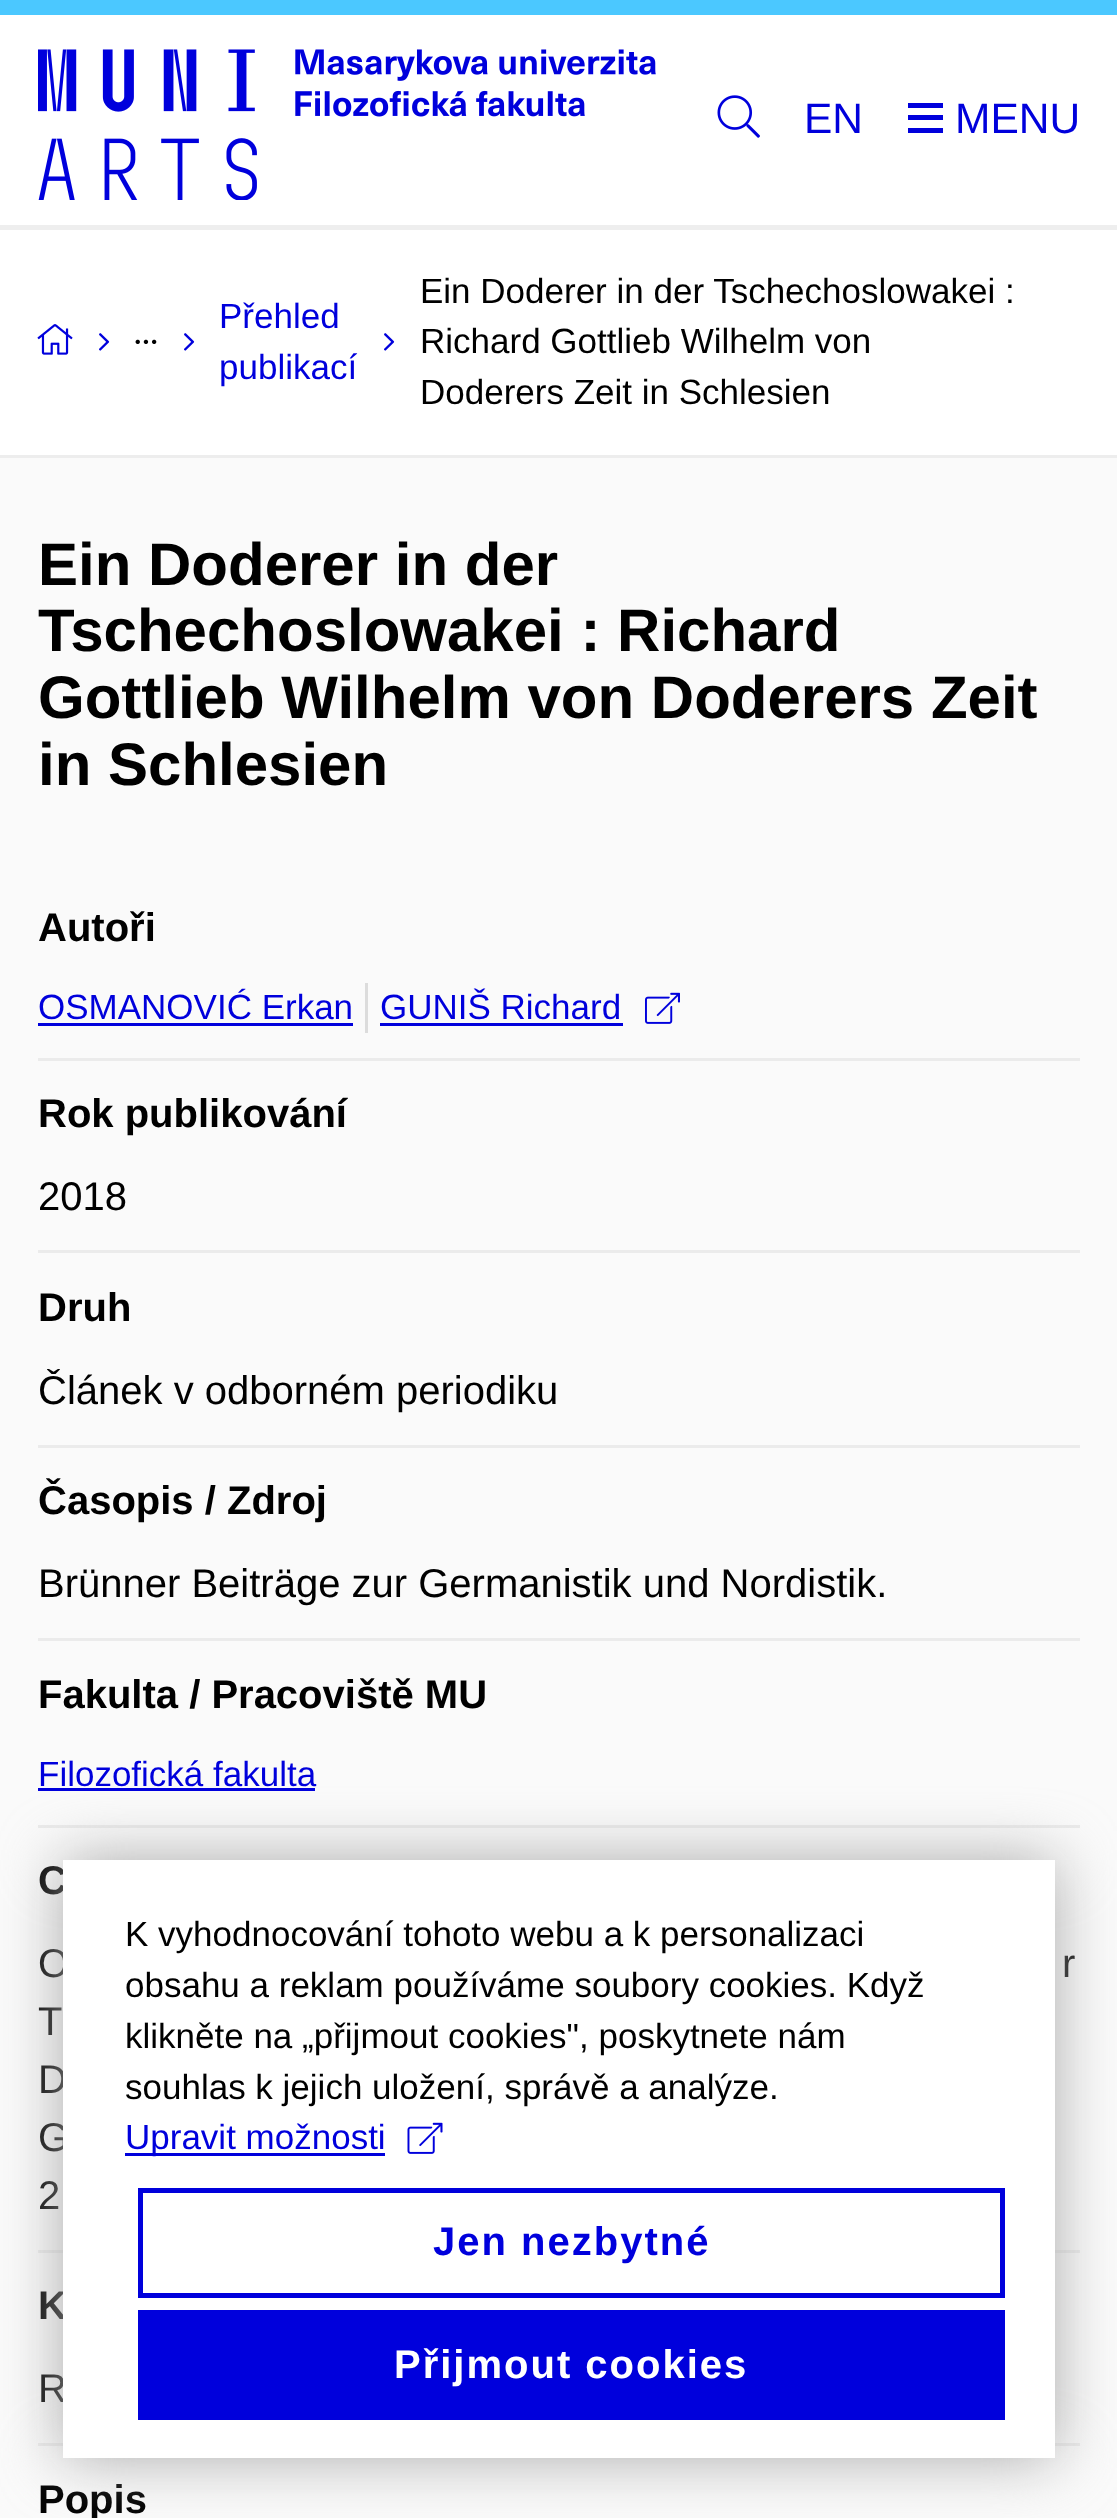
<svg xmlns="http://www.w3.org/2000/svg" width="1117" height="2518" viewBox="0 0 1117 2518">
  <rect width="100%" height="100%" fill="rgb(250,250,250)"/>
  <rect x="0" y="15" width="1117" height="210" fill="rgb(255,255,255)"/>
  <rect x="0" y="0" width="1117" height="15" fill="rgb(75,200,255)"/>
  <rect x="0" y="225" width="1117" height="5" fill="rgb(238,238,238)"/>
  <image x="38" y="49" width="618" height="151" href="pic1.png"/>
  <image x="717" y="95" width="43" height="43" href="pic2.png"/>
  <text x="804" y="133" font-family="Liberation Sans" font-size="42.5" fill="rgb(0,0,220)">EN</text>
  <rect x="908" y="103" width="35" height="5" fill="rgb(0,0,220)"/>
  <rect x="908" y="115" width="35" height="5" fill="rgb(0,0,220)"/>
  <rect x="908" y="128" width="35" height="5" fill="rgb(0,0,220)"/>
  <text x="955" y="133" font-family="Liberation Sans" font-size="42.5" fill="rgb(0,0,220)">MENU</text>
  <rect x="0" y="230" width="1117" height="225" fill="rgb(255,255,255)"/>
  <rect x="0" y="455" width="1117" height="3" fill="rgb(237,237,237)"/>
  <image x="37" y="324" width="36" height="31" href="pic3.png"/>
  <image x="99" y="333" width="11" height="18" href="pic4.png"/>
  <image x="135" y="339" width="22" height="5" href="pic5.png"/>
  <image x="184" y="333" width="11" height="18" href="pic4.png"/>
  <text x="219" y="328" font-family="Liberation Sans" font-size="35" fill="rgb(0,0,220)">Přehled</text>
  <image x="384" y="333" width="11" height="18" href="pic4.png"/>
  <text x="219" y="379" font-family="Liberation Sans" font-size="35" fill="rgb(0,0,220)">publikací</text>
  <g font-family="Liberation Sans" font-size="35" fill="rgb(0,0,0)">
    <text>
      <tspan x="420" y="303">Ein Doderer in der Tschechoslowakei :</tspan>
      <tspan x="420" y="353">Richard Gottlieb Wilhelm von</tspan>
      <tspan x="420" y="404">Doderers Zeit in Schlesien</tspan>
    </text>
  </g>
  <g font-family="Liberation Sans" font-size="60" font-weight="bold" fill="rgb(0,0,0)">
    <text>
      <tspan x="38" y="585">Ein Doderer in der</tspan>
      <tspan x="38" y="651">Tschechoslowakei : Richard</tspan>
      <tspan x="38" y="718">Gottlieb Wilhelm von Doderers Zeit</tspan>
      <tspan x="38" y="785">in Schlesien</tspan>
    </text>
  </g>
  <text x="38" y="941" font-family="Liberation Sans" font-size="40" font-weight="bold" fill="rgb(0,0,0)">Autoři</text>
  <rect x="38" y="1058" width="1042" height="3" fill="rgb(235,235,235)"/>
  <rect x="365" y="983" width="3" height="50" fill="rgb(220,220,220)"/>
  <text x="38" y="1019" font-family="Liberation Sans" font-size="35" fill="rgb(0,0,220)">OSMANOVIĆ Erkan</text>
  <rect x="38" y="1023" width="315" height="3" fill="rgb(0,0,220)"/>
  <text x="380" y="1019" font-family="Liberation Sans" font-size="35" fill="rgb(0,0,220)">GUNIŠ Richard</text>
  <rect x="380" y="1023" width="243" height="3" fill="rgb(0,0,220)"/>
  <image x="645" y="992" width="35" height="32" href="pic6.png"/>
  <text x="38" y="1127" font-family="Liberation Sans" font-size="40" font-weight="bold" fill="rgb(0,0,0)">Rok publikování</text>
  <rect x="38" y="1250" width="1042" height="3" fill="rgb(235,235,235)"/>
  <text x="38" y="1210" font-family="Liberation Sans" font-size="40" fill="rgb(0,0,0)">2018</text>
  <text x="38" y="1321" font-family="Liberation Sans" font-size="40" font-weight="bold" fill="rgb(0,0,0)">Druh</text>
  <rect x="38" y="1445" width="1042" height="3" fill="rgb(235,235,235)"/>
  <text x="38" y="1404" font-family="Liberation Sans" font-size="40" fill="rgb(0,0,0)">Článek v odborném periodiku</text>
  <text x="38" y="1514" font-family="Liberation Sans" font-size="40" font-weight="bold" fill="rgb(0,0,0)">Časopis / Zdroj</text>
  <rect x="38" y="1638" width="1042" height="3" fill="rgb(235,235,235)"/>
  <text x="38" y="1597" font-family="Liberation Sans" font-size="40" fill="rgb(0,0,0)">Brünner Beiträge zur Germanistik und Nordistik.</text>
  <text x="38" y="1708" font-family="Liberation Sans" font-size="40" font-weight="bold" fill="rgb(0,0,0)">Fakulta / Pracoviště MU</text>
  <rect x="38" y="1825" width="1042" height="3" fill="rgb(235,235,235)"/>
  <text x="38" y="1786" font-family="Liberation Sans" font-size="35" fill="rgb(0,0,220)">Filozofická fakulta</text>
  <rect x="38" y="1788" width="277" height="3" fill="rgb(0,0,220)"/>
  <text x="38" y="1894" font-family="Liberation Sans" font-size="40" font-weight="bold" fill="rgb(0,0,0)">C</text>
  <rect x="38" y="2250" width="1042" height="3" fill="rgb(235,235,235)"/>
  <g font-family="Liberation Sans" font-size="40" fill="rgb(0,0,0)">
    <text x="38" y="1977">O</text>
    <text x="1062" y="1977">r</text>
    <text>
      <tspan x="38" y="2035">T</tspan>
      <tspan x="38" y="2093">D</tspan>
      <tspan x="38" y="2151">G</tspan>
      <tspan x="38" y="2209">2</tspan>
    </text>
  </g>
  <text x="38" y="2319" font-family="Liberation Sans" font-size="40" font-weight="bold" fill="rgb(0,0,0)">K</text>
  <rect x="38" y="2443" width="1042" height="3" fill="rgb(235,235,235)"/>
  <text x="38" y="2402" font-family="Liberation Sans" font-size="40" fill="rgb(0,0,0)">R</text>
  <text x="38" y="2513" font-family="Liberation Sans" font-size="40" font-weight="bold" fill="rgb(0,0,0)">Popis</text>
  <rect x="63" y="1860" width="992" height="598" fill="rgb(170,170,170)" filter="blur(31px)"/>
  <rect x="63" y="1860" width="992" height="598" fill="rgb(255,255,255)"/>
  <g font-family="Liberation Sans" font-size="35" fill="rgb(0,0,0)">
    <text>
      <tspan x="125" y="1946">K vyhodnocování tohoto webu a k personalizaci</tspan>
      <tspan x="125" y="1997">obsahu a reklam používáme soubory cookies. Když</tspan>
      <tspan x="125" y="2048">klikněte na „přijmout cookies", poskytnete nám</tspan>
      <tspan x="125" y="2099">souhlas k jejich uložení, správě a analýze.</tspan>
    </text>
  </g>
  <rect x="125" y="2153" width="260" height="3" fill="rgb(0,0,220)"/>
  <text x="125" y="2149" font-family="Liberation Sans" font-size="35" fill="rgb(0,0,220)">Upravit možnosti</text>
  <image x="407" y="2122" width="36" height="32" href="pic7.png"/>
  <rect x="140.5" y="2190.5" width="862" height="105" fill="none" stroke="rgb(0,0,220)" stroke-width="5"/>
  <text x="433" y="2255" font-family="Liberation Sans" font-size="40" font-weight="bold" letter-spacing="2" fill="rgb(0,0,220)">Jen nezbytné</text>
  <rect x="138" y="2310" width="867" height="110" fill="rgb(0,0,220)"/>
  <text x="394" y="2378" font-family="Liberation Sans" font-size="40" font-weight="bold" letter-spacing="2" fill="rgb(255,255,255)">Přijmout cookies</text>
</svg>
